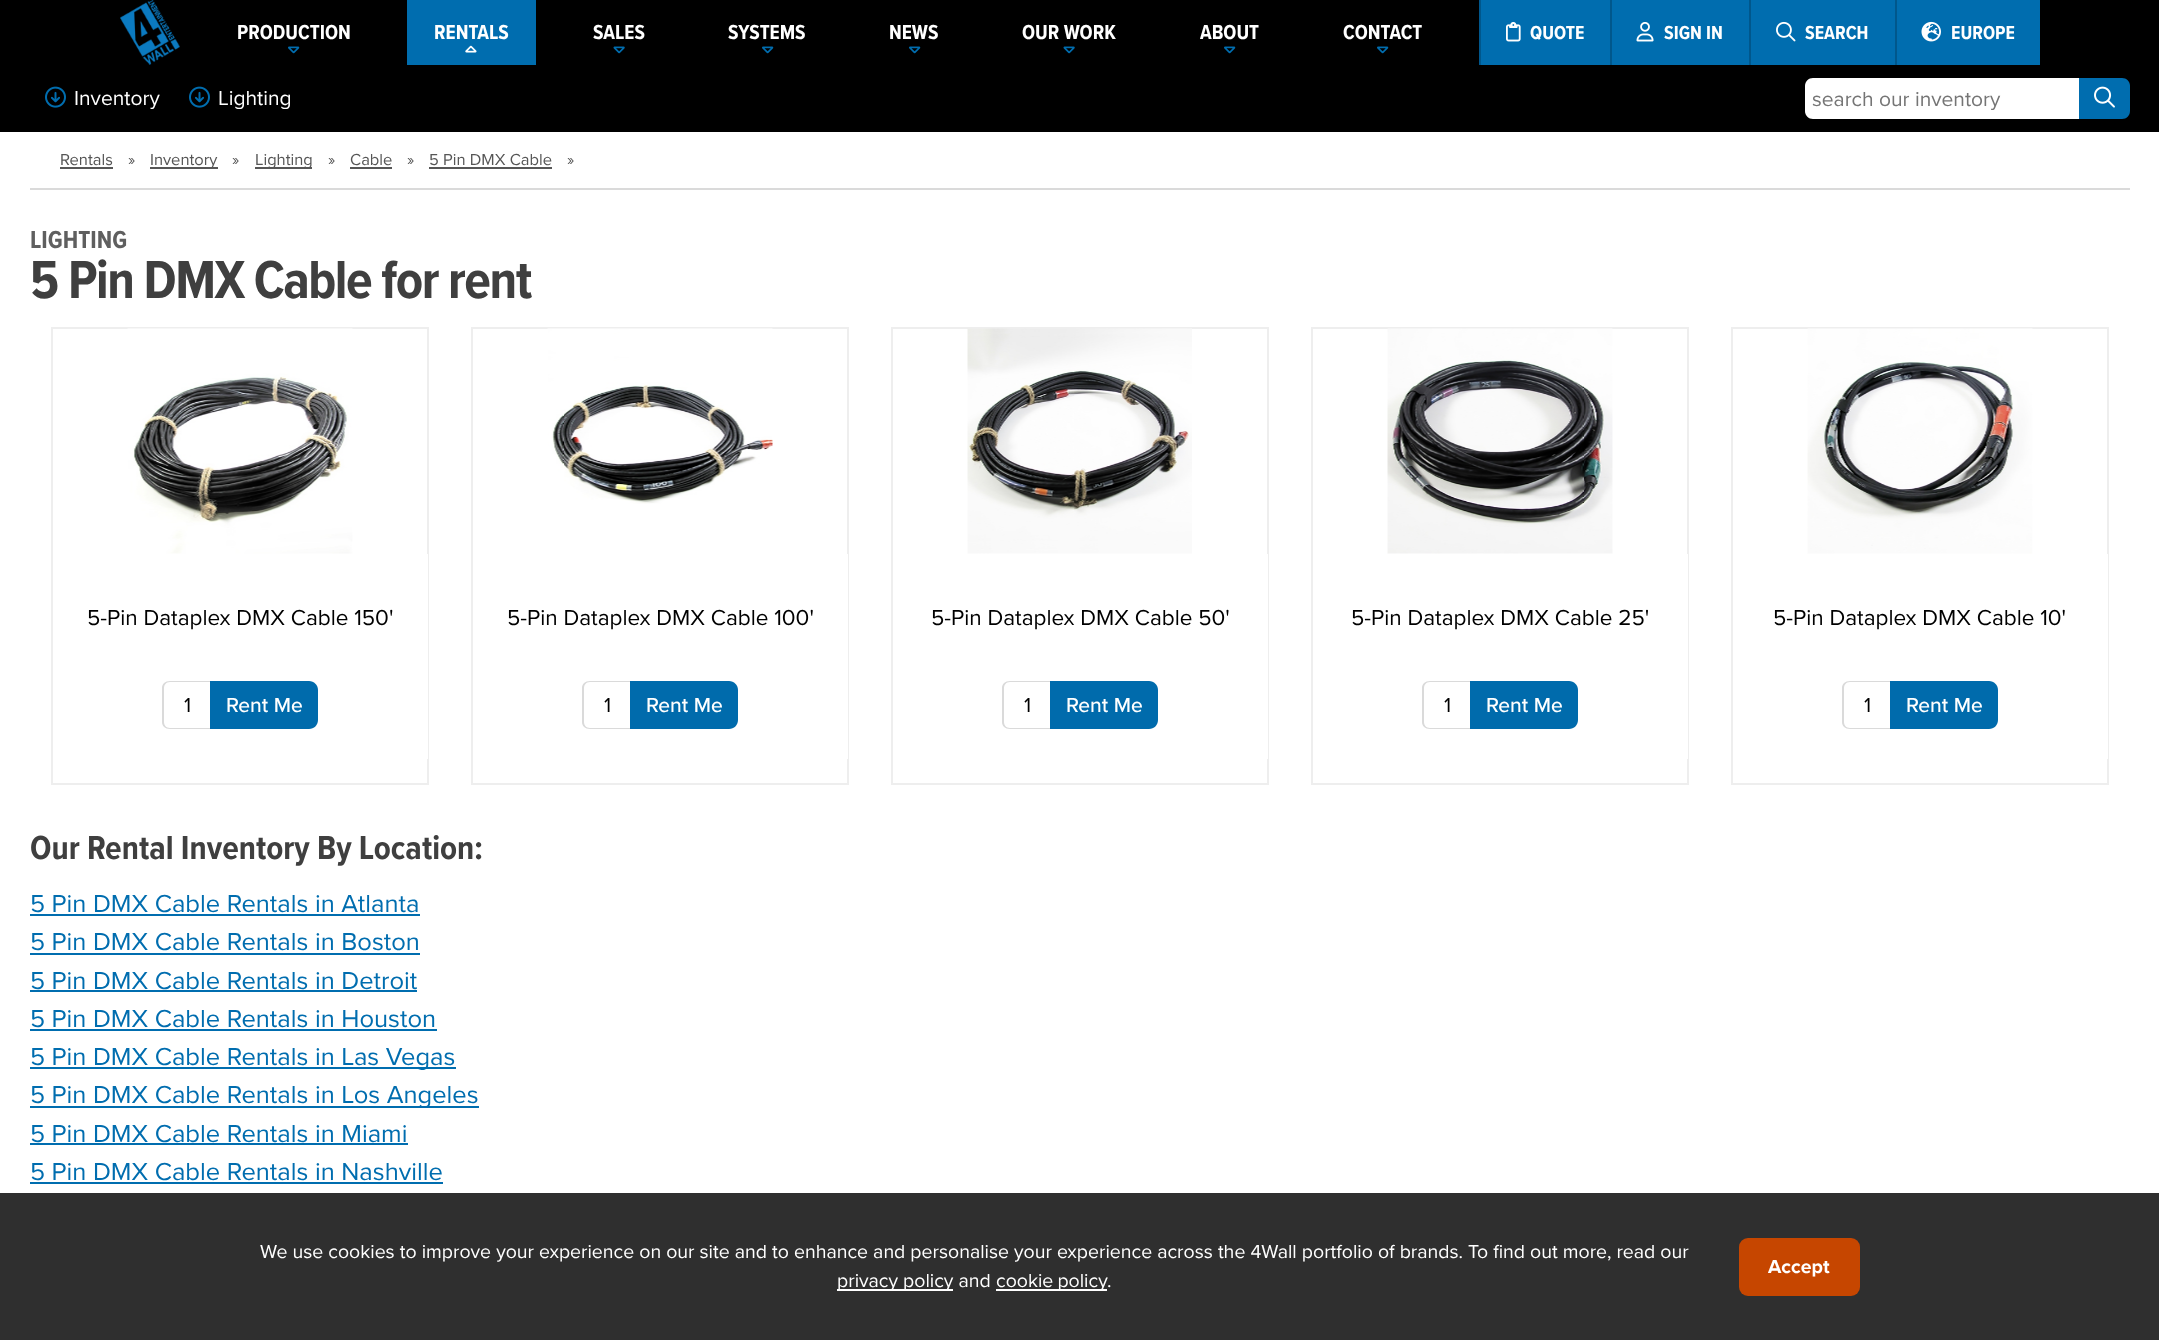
<svg xmlns="http://www.w3.org/2000/svg" width="2159" height="1340" viewBox="0 0 2159 1340">
  <rect width="100%" height="100%" fill="rgb(255,255,255)"/>
  <rect x="0" y="0" width="2159" height="132" fill="rgb(0,0,0)"/>
  <image x="120" y="0" width="60" height="65" href="pic1.png"/>
  <text x="237" y="39" font-family="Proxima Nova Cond" font-size="21" font-weight="bold" fill="rgb(255,255,255)">PRODUCTION</text>
  <image x="288" y="46" width="12" height="8" href="pic2.png"/>
  <rect x="407" y="0" width="129" height="65" fill="rgb(0,109,175)"/>
  <text x="434" y="39" font-family="Proxima Nova Cond" font-size="21" font-weight="bold" fill="rgb(255,255,255)">RENTALS</text>
  <image x="465" y="45" width="12" height="8" href="pic3.png"/>
  <text x="593" y="39" font-family="Proxima Nova Cond" font-size="21" font-weight="bold" fill="rgb(255,255,255)">SALES</text>
  <image x="613" y="46" width="12" height="8" href="pic4.png"/>
  <text x="728" y="39" font-family="Proxima Nova Cond" font-size="21" font-weight="bold" fill="rgb(255,255,255)">SYSTEMS</text>
  <image x="762" y="46" width="12" height="8" href="pic2.png"/>
  <text x="889" y="39" font-family="Proxima Nova Cond" font-size="21" font-weight="bold" fill="rgb(255,255,255)">NEWS</text>
  <image x="909" y="46" width="12" height="8" href="pic2.png"/>
  <text x="1022" y="39" font-family="Proxima Nova Cond" font-size="21" font-weight="bold" fill="rgb(255,255,255)">OUR WORK</text>
  <image x="1063" y="46" width="12" height="8" href="pic4.png"/>
  <text x="1200" y="39" font-family="Proxima Nova Cond" font-size="21" font-weight="bold" fill="rgb(255,255,255)">ABOUT</text>
  <image x="1224" y="46" width="12" height="8" href="pic2.png"/>
  <text x="1343" y="39" font-family="Proxima Nova Cond" font-size="21" font-weight="bold" fill="rgb(255,255,255)">CONTACT</text>
  <image x="1377" y="46" width="12" height="8" href="pic2.png"/>
  <rect x="1481" y="0" width="559" height="65" fill="rgb(0,109,175)"/>
  <rect x="1479" y="0" width="2" height="65" fill="rgb(0,87,140)"/>
  <image x="1506" y="21" width="15" height="21" href="pic5.png"/>
  <text x="1530" y="39" font-family="Proxima Nova Cond" font-size="19.5" font-weight="bold" fill="rgb(255,255,255)">QUOTE</text>
  <rect x="1610" y="0" width="2" height="65" fill="rgb(0,87,140)"/>
  <image x="1636" y="22" width="18" height="20" href="pic6.png"/>
  <text x="1664" y="39" font-family="Proxima Nova Cond" font-size="19.5" font-weight="bold" fill="rgb(255,255,255)">SIGN IN</text>
  <rect x="1749" y="0" width="2" height="65" fill="rgb(0,87,140)"/>
  <image x="1776" y="21" width="20" height="21" href="pic7.png"/>
  <text x="1805" y="39" font-family="Proxima Nova Cond" font-size="19.5" font-weight="bold" fill="rgb(255,255,255)">SEARCH</text>
  <rect x="1895" y="0" width="2" height="65" fill="rgb(0,87,140)"/>
  <image x="1921" y="21" width="20" height="21" href="pic8.png"/>
  <text x="1951" y="39" font-family="Proxima Nova Cond" font-size="19.5" font-weight="bold" fill="rgb(255,255,255)">EUROPE</text>
  <image x="45" y="86" width="21" height="22" href="pic9.png"/>
  <text x="74" y="105" font-family="Proxima Nova" font-size="21" fill="rgb(255,255,255)">Inventory</text>
  <image x="189" y="86" width="21" height="22" href="pic9.png"/>
  <text x="218" y="105" font-family="Proxima Nova" font-size="21" fill="rgb(255,255,255)">Lighting</text>
  <path d="M1813 78H2079V119H1813C1808.5 119 1805 115.5 1805 111V86C1805 81.5 1808.5 78 1813 78Z" fill="rgb(255,255,255)"/>
  <text x="1812" y="106" font-family="Proxima Nova" font-size="21" fill="rgb(117,117,117)">search our inventory</text>
  <path d="M2079 78H2122C2126.5 78 2130 81.5 2130 86V111C2130 115.5 2126.5 119 2122 119H2079Z" fill="rgb(0,109,175)"/>
  <image x="2094" y="86" width="21" height="22" href="pic10.png"/>
  <rect x="30" y="188" width="2100" height="2" fill="rgb(218,218,218)"/>
  <text x="60" y="165" font-family="Proxima Nova" font-size="16.5" fill="rgb(86,86,86)">Rentals</text>
  <rect x="60" y="167" width="53" height="2" fill="rgb(86,86,86)"/>
  <text x="128" y="165" font-family="Proxima Nova" font-size="16.5" fill="rgb(86,86,86)">»</text>
  <rect x="150" y="167" width="68" height="2" fill="rgb(86,86,86)"/>
  <g font-family="Proxima Nova" font-size="16.5" fill="rgb(86,86,86)">
    <text x="150" y="165">Inventory</text>
    <text x="232" y="165">»</text>
  </g>
  <rect x="255" y="167" width="57" height="2" fill="rgb(86,86,86)"/>
  <g font-family="Proxima Nova" font-size="16.5" fill="rgb(86,86,86)">
    <text x="255" y="165">Lighting</text>
    <text x="328" y="165">»</text>
    <text x="350" y="165">Cable</text>
  </g>
  <rect x="350" y="167" width="42" height="2" fill="rgb(86,86,86)"/>
  <g font-family="Proxima Nova" font-size="16.5" fill="rgb(86,86,86)">
    <text x="407" y="165">»</text>
    <text x="429" y="165">5 Pin DMX Cable</text>
  </g>
  <rect x="429" y="167" width="123" height="2" fill="rgb(86,86,86)"/>
  <text x="567" y="165" font-family="Proxima Nova" font-size="16.5" fill="rgb(86,86,86)">»</text>
  <text x="30" y="248" font-family="Proxima Nova Cond" font-size="25.5" font-weight="bold" fill="rgb(95,95,95)">LIGHTING</text>
  <text x="30" y="298" font-family="Proxima Nova Cond" font-size="55.5" font-weight="bold" letter-spacing="-1.5" fill="rgb(63,63,63)">5 Pin DMX Cable for rent</text>
  <rect x="52" y="328" width="376" height="456" fill="none" stroke="rgb(238,238,238)" stroke-width="2"/>
  <image x="127" y="328" width="226" height="226" href="pic11.png"/>
  <rect x="427" y="554" width="1" height="205" fill="rgb(255,255,255)"/>
  <text x="87" y="625" font-family="Proxima Nova" font-size="22.5" fill="rgb(0,0,0)">5-Pin Dataplex DMX Cable 150'</text>
  <path d="M170 681H210V729H170C165 729 162 726 162 722V688C162 684 165 681 170 681ZM170 682H210V728H170C166 728 164 725 164 722V688C164 685 166 682 170 682Z" fill="rgb(218,218,218)" fill-rule="evenodd"/>
  <text x="184" y="712" font-family="Proxima Nova" font-size="21" fill="rgb(0,0,0)">1</text>
  <path d="M210 681H309C314 681 318 685 318 690V720C318 725 314 729 309 729H210Z" fill="rgb(0,107,172)"/>
  <text x="226" y="712" font-family="Proxima Nova" font-size="21" font-weight="500" fill="rgb(255,255,255)">Rent Me</text>
  <rect x="472" y="328" width="376" height="456" fill="none" stroke="rgb(238,238,238)" stroke-width="2"/>
  <image x="547" y="328" width="226" height="176" href="pic12.png"/>
  <rect x="847" y="554" width="1" height="205" fill="rgb(255,255,255)"/>
  <text x="507" y="625" font-family="Proxima Nova" font-size="22.5" fill="rgb(0,0,0)">5-Pin Dataplex DMX Cable 100'</text>
  <path d="M590 681H630V729H590C585 729 582 726 582 722V688C582 684 585 681 590 681ZM590 682H630V728H590C586 728 584 725 584 722V688C584 685 586 682 590 682Z" fill="rgb(218,218,218)" fill-rule="evenodd"/>
  <text x="604" y="712" font-family="Proxima Nova" font-size="21" fill="rgb(0,0,0)">1</text>
  <path d="M630 681H729C734 681 738 685 738 690V720C738 725 734 729 729 729H630Z" fill="rgb(0,107,172)"/>
  <text x="646" y="712" font-family="Proxima Nova" font-size="21" font-weight="500" fill="rgb(255,255,255)">Rent Me</text>
  <rect x="892" y="328" width="376" height="456" fill="none" stroke="rgb(238,238,238)" stroke-width="2"/>
  <image x="967" y="328" width="225" height="226" href="pic13.png"/>
  <rect x="1267" y="554" width="1" height="205" fill="rgb(255,255,255)"/>
  <text x="931" y="625" font-family="Proxima Nova" font-size="22.5" fill="rgb(0,0,0)">5-Pin Dataplex DMX Cable 50'</text>
  <path d="M1010 681H1050V729H1010C1005 729 1002 726 1002 722V688C1002 684 1005 681 1010 681ZM1010 682H1050V728H1010C1006 728 1004 725 1004 722V688C1004 685 1006 682 1010 682Z" fill="rgb(218,218,218)" fill-rule="evenodd"/>
  <text x="1024" y="712" font-family="Proxima Nova" font-size="21" fill="rgb(0,0,0)">1</text>
  <path d="M1050 681H1149C1154 681 1158 685 1158 690V720C1158 725 1154 729 1149 729H1050Z" fill="rgb(0,107,172)"/>
  <text x="1066" y="712" font-family="Proxima Nova" font-size="21" font-weight="500" fill="rgb(255,255,255)">Rent Me</text>
  <rect x="1312" y="328" width="376" height="456" fill="none" stroke="rgb(238,238,238)" stroke-width="2"/>
  <image x="1387" y="328" width="226" height="226" href="pic14.png"/>
  <rect x="1687" y="554" width="1" height="205" fill="rgb(255,255,255)"/>
  <text x="1351" y="625" font-family="Proxima Nova" font-size="22.5" fill="rgb(0,0,0)">5-Pin Dataplex DMX Cable 25'</text>
  <path d="M1430 681H1470V729H1430C1425 729 1422 726 1422 722V688C1422 684 1425 681 1430 681ZM1430 682H1470V728H1430C1426 728 1424 725 1424 722V688C1424 685 1426 682 1430 682Z" fill="rgb(218,218,218)" fill-rule="evenodd"/>
  <text x="1444" y="712" font-family="Proxima Nova" font-size="21" fill="rgb(0,0,0)">1</text>
  <path d="M1470 681H1569C1574 681 1578 685 1578 690V720C1578 725 1574 729 1569 729H1470Z" fill="rgb(0,107,172)"/>
  <text x="1486" y="712" font-family="Proxima Nova" font-size="21" font-weight="500" fill="rgb(255,255,255)">Rent Me</text>
  <rect x="1732" y="328" width="376" height="456" fill="none" stroke="rgb(238,238,238)" stroke-width="2"/>
  <image x="1807" y="328" width="226" height="226" href="pic15.png"/>
  <rect x="2107" y="554" width="1" height="205" fill="rgb(255,255,255)"/>
  <text x="1773" y="625" font-family="Proxima Nova" font-size="22.5" fill="rgb(0,0,0)">5-Pin Dataplex DMX Cable 10'</text>
  <path d="M1850 681H1890V729H1850C1845 729 1842 726 1842 722V688C1842 684 1845 681 1850 681ZM1850 682H1890V728H1850C1846 728 1844 725 1844 722V688C1844 685 1846 682 1850 682Z" fill="rgb(218,218,218)" fill-rule="evenodd"/>
  <text x="1864" y="712" font-family="Proxima Nova" font-size="21" fill="rgb(0,0,0)">1</text>
  <path d="M1890 681H1989C1994 681 1998 685 1998 690V720C1998 725 1994 729 1989 729H1890Z" fill="rgb(0,107,172)"/>
  <text x="1906" y="712" font-family="Proxima Nova" font-size="21" font-weight="500" fill="rgb(255,255,255)">Rent Me</text>
  <text x="30" y="859" font-family="Proxima Nova Cond" font-size="34.5" font-weight="bold" fill="rgb(63,63,63)">Our Rental Inventory By Location:</text>
  <text x="30" y="912" font-family="Proxima Nova" font-size="25.5" fill="rgb(0,109,175)">5 Pin DMX Cable Rentals in Atlanta</text>
  <rect x="30" y="914" width="390" height="2" fill="rgb(0,109,175)"/>
  <text x="30" y="950" font-family="Proxima Nova" font-size="25.5" fill="rgb(0,109,175)">5 Pin DMX Cable Rentals in Boston</text>
  <rect x="30" y="953" width="390" height="2" fill="rgb(0,109,175)"/>
  <text x="30" y="989" font-family="Proxima Nova" font-size="25.5" fill="rgb(0,109,175)">5 Pin DMX Cable Rentals in Detroit</text>
  <rect x="30" y="990" width="387" height="2" fill="rgb(0,109,175)"/>
  <text x="30" y="1027" font-family="Proxima Nova" font-size="25.5" fill="rgb(0,109,175)">5 Pin DMX Cable Rentals in Houston</text>
  <rect x="30" y="1029" width="407" height="2" fill="rgb(0,109,175)"/>
  <rect x="30" y="1067" width="426" height="2" fill="rgb(0,109,175)"/>
  <text x="30" y="1065" font-family="Proxima Nova" font-size="25.5" fill="rgb(0,109,175)">5 Pin DMX Cable Rentals in Las Vegas</text>
  <rect x="30" y="1106" width="449" height="2" fill="rgb(0,109,175)"/>
  <g font-family="Proxima Nova" font-size="25.5" fill="rgb(0,109,175)">
    <text>
      <tspan x="30" y="1103">5 Pin DMX Cable Rentals in Los Angeles</tspan>
      <tspan x="30" y="1142">5 Pin DMX Cable Rentals in Miami</tspan>
    </text>
  </g>
  <rect x="30" y="1143" width="378" height="2" fill="rgb(0,109,175)"/>
  <text x="30" y="1180" font-family="Proxima Nova" font-size="25.5" fill="rgb(0,109,175)">5 Pin DMX Cable Rentals in Nashville</text>
  <rect x="30" y="1182" width="413" height="2" fill="rgb(0,109,175)"/>
  <rect x="0" y="1193" width="2159" height="147" fill="rgb(47,47,47)"/>
  <text x="260" y="1258" font-family="Proxima Nova" font-size="19.5" fill="rgb(255,255,255)">We use cookies to improve your experience on our site and to enhance and personalise your experience across the 4Wall portfolio of brands. To find out more, read our</text>
  <rect x="837" y="1289" width="116" height="2" fill="rgb(255,255,255)"/>
  <text x="837" y="1287" font-family="Proxima Nova" font-size="19.5" fill="rgb(255,255,255)">privacy policy and</text>
  <rect x="996" y="1289" width="111" height="2" fill="rgb(255,255,255)"/>
  <g font-family="Proxima Nova" font-size="19.5" fill="rgb(255,255,255)">
    <text x="996" y="1287" word-spacing="-1">cookie policy</text>
    <text x="1107" y="1287">.</text>
  </g>
  <rect x="1739" y="1238" width="121" height="58" rx="9" fill="rgb(198,70,0)"/>
  <text x="1768" y="1273" font-family="Proxima Nova" font-size="19.5" font-weight="bold" fill="rgb(255,255,255)">Accept</text>
</svg>
